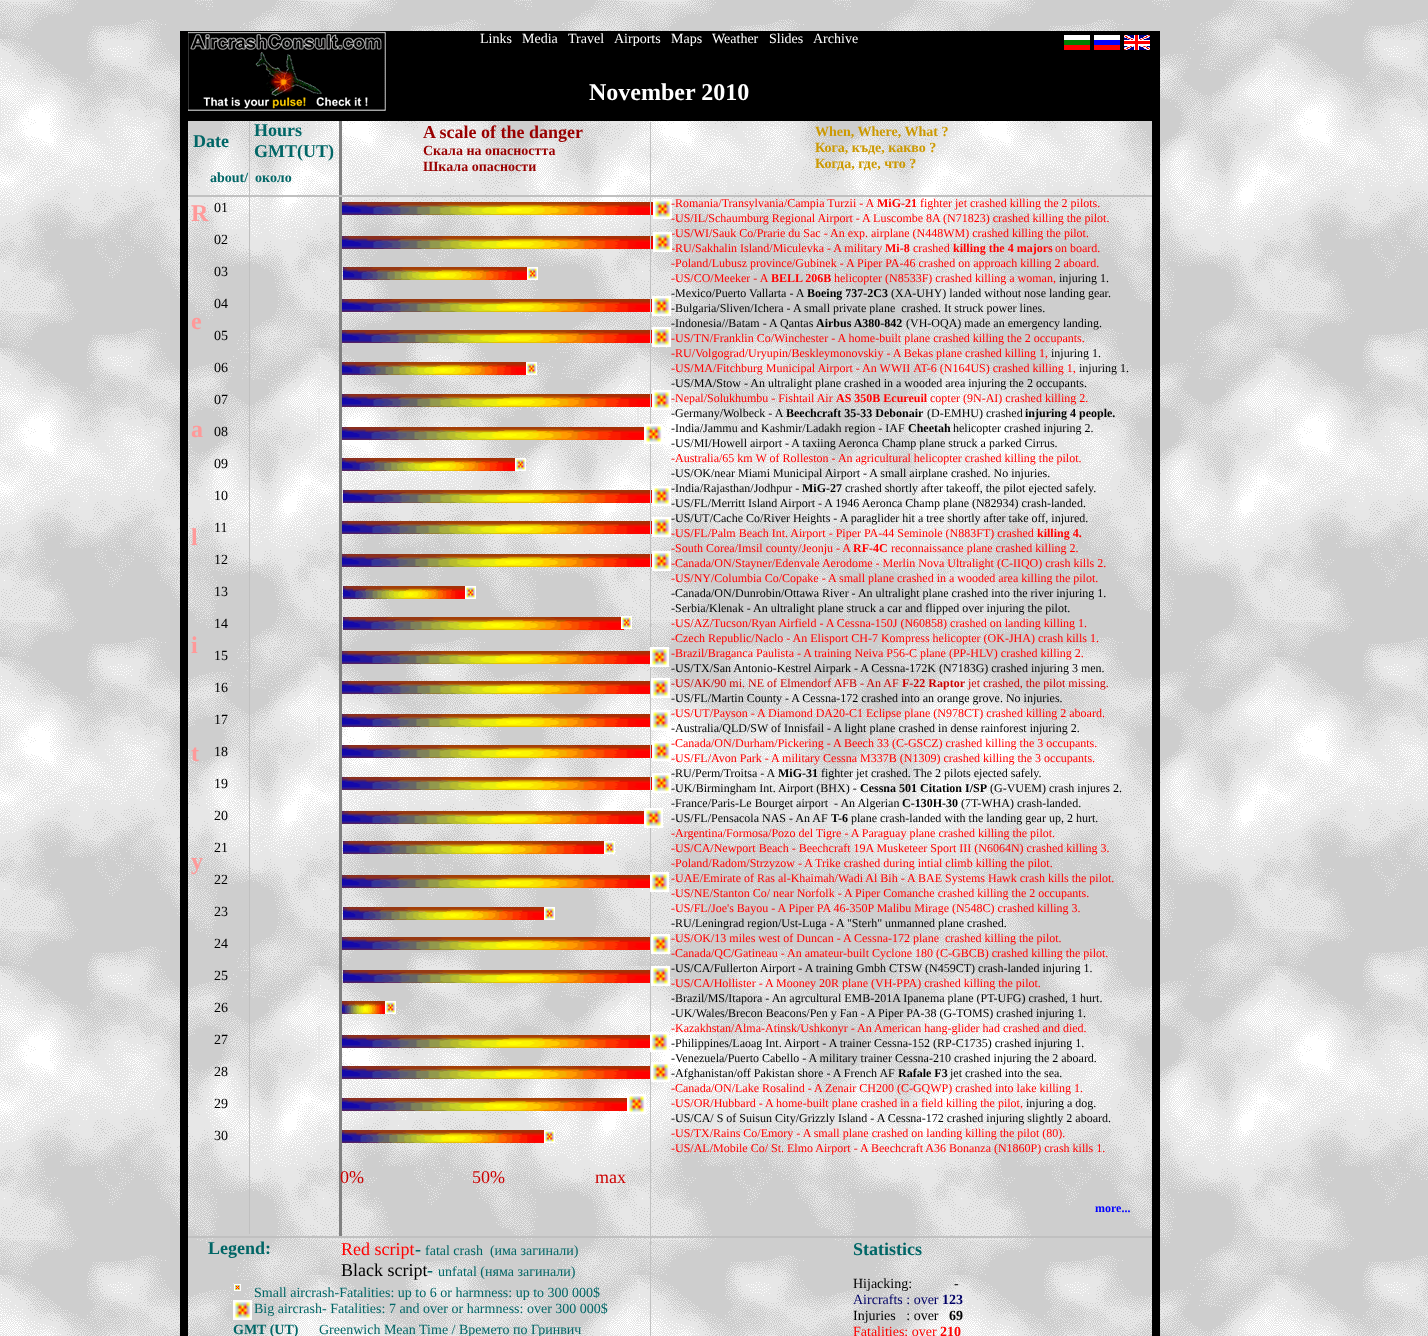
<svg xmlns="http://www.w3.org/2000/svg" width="1428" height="1336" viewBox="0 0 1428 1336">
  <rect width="100%" height="100%" fill="rgb(255,255,255)"/>
  <image x="0" y="0" width="1428" height="1336" href="pic1.png"/>
  <rect x="249" y="121" width="1" height="1113" fill="rgb(192,192,192)"/>
  <rect x="339" y="114" width="3" height="1122" fill="rgb(128,128,128)"/>
  <image x="342" y="202" width="311" height="13" href="pic6.png"/>
  <image x="342" y="236" width="311" height="13" href="pic6.png"/>
  <image x="342" y="299" width="310" height="13" href="pic10.png"/>
  <image x="342" y="330" width="310" height="13" href="pic12.png"/>
  <image x="342" y="394" width="310" height="13" href="pic14.png"/>
  <image x="343" y="490" width="309" height="13" href="pic18.png"/>
  <image x="342" y="521" width="310" height="13" href="pic19.png"/>
  <image x="342" y="554" width="310" height="13" href="pic12.png"/>
  <image x="342" y="745" width="310" height="13" href="pic26.png"/>
  <image x="342" y="777" width="310" height="13" href="pic27.png"/>
  <rect x="650" y="122" width="1" height="1214" fill="rgb(192,192,192)"/>
  <rect x="180" y="195" width="978" height="2" fill="rgb(192,192,192)"/>
  <rect x="181" y="1236" width="972" height="2" fill="rgb(192,192,192)"/>
  <rect x="180" y="31" width="8" height="1305" fill="rgb(0,0,0)"/>
  <rect x="188" y="31" width="964" height="90" fill="rgb(0,0,0)"/>
  <image x="188" y="31" width="198" height="80" href="pic2.png"/>
  <g font-family="Liberation Serif" font-size="14" fill="rgb(255,255,255)">
    <text x="480" y="43">Links</text>
    <text x="522" y="43">Media</text>
    <text x="568" y="43">Travel</text>
    <text x="614" y="43">Airports</text>
    <text x="671" y="43">Maps</text>
    <text x="712" y="43">Weather</text>
    <text x="769" y="43">Slides</text>
    <text x="813" y="43">Archive</text>
  </g>
  <text x="589" y="100" font-family="Liberation Serif" font-size="24" font-weight="bold" fill="rgb(255,255,255)">November 2010</text>
  <image x="1064" y="35" width="26" height="15" href="pic3.png"/>
  <image x="1094" y="35" width="26" height="15" href="pic4.png"/>
  <image x="1124" y="35" width="26" height="15" href="pic5.png"/>
  <rect x="1152" y="31" width="8" height="1305" fill="rgb(0,0,0)"/>
  <g font-family="Liberation Serif" font-size="18" font-weight="bold" fill="rgb(0,102,102)">
    <text x="193" y="147">Date</text>
    <text>
      <tspan x="254" y="136">Hours</tspan>
      <tspan x="254" y="157">GMT(UT)</tspan>
    </text>
  </g>
  <text x="423" y="138" font-family="Liberation Serif" font-size="18" font-weight="bold" fill="rgb(153,0,0)">A scale of the danger</text>
  <g font-family="Liberation Serif" font-size="14" font-weight="bold" fill="rgb(153,0,0)">
    <text>
      <tspan x="423" y="155">Скала на опасността</tspan>
      <tspan x="423" y="171">Шкала опасности</tspan>
    </text>
  </g>
  <g font-family="Liberation Serif" font-size="14" font-weight="bold" fill="rgb(204,153,0)">
    <text>
      <tspan x="815" y="136">When, Where, What ?</tspan>
      <tspan x="815" y="152">Кога, къде, какво ?</tspan>
      <tspan x="815" y="168">Когда, где, что ?</tspan>
    </text>
  </g>
  <text x="210" y="182" font-family="Liberation Serif" font-size="14" font-weight="bold" fill="rgb(0,102,102)" xml:space="preserve">about/  около</text>
  <g font-family="Liberation Serif" font-size="24" font-weight="bold" fill="rgb(255,153,153)">
    <text x="191" y="221">R</text>
    <text x="191" y="329">e</text>
    <text x="191" y="437">a</text>
    <text x="191" y="545">l</text>
    <text x="191" y="653">i</text>
    <text x="191" y="761">t</text>
    <text x="191" y="869">y</text>
  </g>
  <g font-family="Liberation Serif" font-size="14" fill="rgb(0,0,0)">
    <text x="214" y="212">01</text>
    <text x="214" y="244">02</text>
    <text x="214" y="276">03</text>
    <text x="214" y="308">04</text>
    <text x="214" y="340">05</text>
    <text x="214" y="372">06</text>
    <text x="214" y="404">07</text>
    <text x="214" y="436">08</text>
    <text x="214" y="468">09</text>
    <text x="214" y="500">10</text>
    <text x="214" y="532">11</text>
    <text x="214" y="564">12</text>
    <text x="214" y="596">13</text>
    <text x="214" y="628">14</text>
    <text x="214" y="660">15</text>
    <text x="214" y="692">16</text>
    <text x="214" y="724">17</text>
    <text x="214" y="756">18</text>
    <text x="214" y="788">19</text>
    <text x="214" y="820">20</text>
    <text x="214" y="852">21</text>
    <text x="214" y="884">22</text>
    <text x="214" y="916">23</text>
    <text x="214" y="948">24</text>
    <text x="214" y="980">25</text>
    <text x="214" y="1012">26</text>
    <text x="214" y="1044">27</text>
    <text x="214" y="1076">28</text>
    <text x="214" y="1108">29</text>
    <text x="214" y="1140">30</text>
  </g>
  <image x="653" y="199" width="19" height="20" href="pic7.png"/>
  <text x="671" y="207" font-family="Liberation Serif" font-size="12" fill="rgb(255,0,0)">-Romania/Transylvania/Campia Turzii - A</text>
  <text x="877" y="207" font-family="Liberation Serif" font-size="12" font-weight="bold" fill="rgb(255,0,0)">MiG-21</text>
  <g font-family="Liberation Serif" font-size="12" fill="rgb(255,0,0)">
    <text x="920" y="207">fighter jet crashed killing the 2 pilots.</text>
    <text>
      <tspan x="671" y="222">-US/IL/Schaumburg Regional Airport - A Luscombe 8A (N71823) crashed killing the pilot.</tspan>
      <tspan x="671" y="237">-US/WI/Sauk Co/Prarie du Sac - An exp. airplane (N448WM) crashed killing the pilot.</tspan>
      <tspan x="671" y="252">-RU/Sakhalin Island/Miculevka - A military</tspan>
    </text>
  </g>
  <text x="885" y="252" font-family="Liberation Serif" font-size="12" font-weight="bold" fill="rgb(255,0,0)">Mi-8</text>
  <text x="913" y="252" font-family="Liberation Serif" font-size="12" fill="rgb(255,0,0)">crashed</text>
  <text x="953" y="252" font-family="Liberation Serif" font-size="12" font-weight="bold" fill="rgb(255,0,0)">killing the 4 majors</text>
  <g font-family="Liberation Serif" font-size="12" fill="rgb(255,0,0)">
    <text x="1055" y="252">on board.</text>
    <text>
      <tspan x="671" y="267">-Poland/Lubusz province/Gubinek - A Piper PA-46 crashed on approach killing 2 aboard.</tspan>
      <tspan x="671" y="282">-US/CO/Meeker - A</tspan>
    </text>
  </g>
  <text x="771" y="282" font-family="Liberation Serif" font-size="12" font-weight="bold" fill="rgb(255,0,0)">BELL 206B</text>
  <text x="834" y="282" font-family="Liberation Serif" font-size="12" fill="rgb(255,0,0)">helicopter (N8533F) crashed killing a woman,</text>
  <g font-family="Liberation Serif" font-size="12" fill="rgb(0,0,0)">
    <text x="1059" y="282">injuring 1.</text>
    <text x="671" y="297">-Mexico/Puerto Vallarta - A</text>
  </g>
  <text x="807" y="297" font-family="Liberation Serif" font-size="12" font-weight="bold" fill="rgb(0,0,0)">Boeing 737-2C3</text>
  <g font-family="Liberation Serif" font-size="12" fill="rgb(0,0,0)">
    <text x="891" y="297">(XA-UHY) landed without nose landing gear.</text>
    <text xml:space="preserve"><tspan x="671" y="312">-Bulgaria/Sliven/Ichera - A small private plane  crashed. It struck power lines.</tspan><tspan x="671" y="327">-Indonesia//Batam - A Qantas</tspan></text>
  </g>
  <text x="816" y="327" font-family="Liberation Serif" font-size="12" font-weight="bold" fill="rgb(0,0,0)">Airbus A380-842</text>
  <text x="906" y="327" font-family="Liberation Serif" font-size="12" fill="rgb(0,0,0)">(VH-OQA) made an emergency landing.</text>
  <g font-family="Liberation Serif" font-size="12" fill="rgb(255,0,0)">
    <text>
      <tspan x="671" y="342">-US/TN/Franklin Co/Winchester - A home-built plane crashed killing the 2 occupants.</tspan>
      <tspan x="671" y="357">-RU/Volgograd/Uryupin/Beskleymonovskiy - A Bekas plane crashed killing 1,</tspan>
    </text>
  </g>
  <text x="1051" y="357" font-family="Liberation Serif" font-size="12" fill="rgb(0,0,0)">injuring 1.</text>
  <text x="671" y="372" font-family="Liberation Serif" font-size="12" fill="rgb(255,0,0)">-US/MA/Fitchburg Municipal Airport - An WWІІ AT-6 (N164US) crashed killing 1,</text>
  <g font-family="Liberation Serif" font-size="12" fill="rgb(0,0,0)">
    <text x="1079" y="372">injuring 1.</text>
    <text x="671" y="387">-US/MA/Stow - An ultralight plane crashed in a wooded area injuring the 2 occupants.</text>
  </g>
  <text x="671" y="402" font-family="Liberation Serif" font-size="12" fill="rgb(255,0,0)">-Nepal/Solukhumbu - Fishtail Air</text>
  <text x="836" y="402" font-family="Liberation Serif" font-size="12" font-weight="bold" fill="rgb(255,0,0)">AS 350B Ecureuil</text>
  <text x="930" y="402" font-family="Liberation Serif" font-size="12" fill="rgb(255,0,0)">copter (9N-AI) crashed killing 2.</text>
  <text x="671" y="417" font-family="Liberation Serif" font-size="12" fill="rgb(0,0,0)">-Germany/Wolbeck - A</text>
  <text x="786" y="417" font-family="Liberation Serif" font-size="12" font-weight="bold" fill="rgb(0,0,0)">Beechcraft 35-33 Debonair</text>
  <text x="927" y="417" font-family="Liberation Serif" font-size="12" fill="rgb(0,0,0)">(D-EMHU) crashed</text>
  <text x="1025" y="417" font-family="Liberation Serif" font-size="12" font-weight="bold" fill="rgb(0,0,0)">injuring 4 people.</text>
  <text x="671" y="432" font-family="Liberation Serif" font-size="12" fill="rgb(0,0,0)">-India/Jammu and Kashmir/Ladakh region - IAF</text>
  <text x="908" y="432" font-family="Liberation Serif" font-size="12" font-weight="bold" fill="rgb(0,0,0)">Cheetah</text>
  <g font-family="Liberation Serif" font-size="12" fill="rgb(0,0,0)">
    <text x="953" y="432">helicopter crashed injuring 2.</text>
    <text x="671" y="447">-US/MI/Howell airport - A taxiing Aeronca Champ plane struck a parked Cirrus.</text>
  </g>
  <text x="671" y="462" font-family="Liberation Serif" font-size="12" fill="rgb(255,0,0)">-Australia/65 km W of Rolleston - An agricultural helicopter crashed killing the pilot.</text>
  <g font-family="Liberation Serif" font-size="12" fill="rgb(0,0,0)">
    <text>
      <tspan x="671" y="477">-US/OK/near Miami Municipal Airport - A small airplane crashed. No injuries.</tspan>
      <tspan x="671" y="492">-India/Rajasthan/Jodhpur -</tspan>
    </text>
  </g>
  <text x="802" y="492" font-family="Liberation Serif" font-size="12" font-weight="bold" fill="rgb(0,0,0)">MiG-27</text>
  <g font-family="Liberation Serif" font-size="12" fill="rgb(0,0,0)">
    <text x="845" y="492">crashed shortly after takeoff, the pilot ejected safely.</text>
    <text>
      <tspan x="671" y="507">-US/FL/Merritt Island Airport - A 1946 Aeronca Champ plane (N82934) crash-landed.</tspan>
      <tspan x="671" y="522">-US/UT/Cache Co/River Heights - A paraglider hit a tree shortly after take off, injured.</tspan>
    </text>
  </g>
  <text x="671" y="537" font-family="Liberation Serif" font-size="12" fill="rgb(255,0,0)">-US/FL/Palm Beach Int. Airport - Piper PA-44 Seminole (N883FT) crashed</text>
  <text x="1037" y="537" font-family="Liberation Serif" font-size="12" font-weight="bold" fill="rgb(255,0,0)">killing 4.</text>
  <text x="671" y="552" font-family="Liberation Serif" font-size="12" fill="rgb(255,0,0)">-South Corea/Imsil county/Jeonju - A</text>
  <text x="853" y="552" font-family="Liberation Serif" font-size="12" font-weight="bold" fill="rgb(255,0,0)">RF-4C</text>
  <g font-family="Liberation Serif" font-size="12" fill="rgb(255,0,0)">
    <text x="891" y="552">reconnaissance plane crashed killing 2.</text>
    <text>
      <tspan x="671" y="567">-Canada/ON/Stayner/Edenvale Aerodome - Merlin Nova Ultralight (C-IIQO) crash kills 2.</tspan>
      <tspan x="671" y="582">-US/NY/Columbia Co/Copake - A small plane crashed in a wooded area killing the pilot.</tspan>
    </text>
  </g>
  <g font-family="Liberation Serif" font-size="12" fill="rgb(0,0,0)">
    <text>
      <tspan x="671" y="597">-Canada/ON/Dunrobin/Ottawa River - An ultralight plane crashed into the river injuring 1.</tspan>
      <tspan x="671" y="612">-Serbia/Klenak - An ultralight plane struck a car and flipped over injuring the pilot.</tspan>
    </text>
  </g>
  <g font-family="Liberation Serif" font-size="12" fill="rgb(255,0,0)">
    <text>
      <tspan x="671" y="627">-US/AZ/Tucson/Ryan Airfield - A Cessna-150J (N60858) crashed on landing killing 1.</tspan>
      <tspan x="671" y="642">-Czech Republic/Naclo - An Elisport CH-7 Kompress helicopter (OK-JHA) crash kills 1.</tspan>
      <tspan x="671" y="657">-Brazil/Braganca Paulista - A training Neiva P56-C plane (PP-HLV) crashed killing 2.</tspan>
    </text>
  </g>
  <text x="671" y="672" font-family="Liberation Serif" font-size="12" fill="rgb(0,0,0)">-US/TX/San Antonio-Kestrel Airpark - A Cessna-172K (N7183G) crashed injuring 3 men.</text>
  <text x="671" y="687" font-family="Liberation Serif" font-size="12" fill="rgb(204,0,0)">-US/AK/90 mi. NE of Elmendorf AFB - An AF</text>
  <text x="902" y="687" font-family="Liberation Serif" font-size="12" font-weight="bold" fill="rgb(204,0,0)">F-22 Raptor</text>
  <text x="968" y="687" font-family="Liberation Serif" font-size="12" fill="rgb(204,0,0)">jet crashed, the pilot missing.</text>
  <text x="671" y="702" font-family="Liberation Serif" font-size="12" fill="rgb(0,0,0)">-US/FL/Martin County - A Cessna-172 crashed into an orange grove. No injuries.</text>
  <text x="671" y="717" font-family="Liberation Serif" font-size="12" fill="rgb(255,0,0)">-US/UT/Payson - A Diamond DA20-C1 Eclipse plane (N978CT) crashed killing 2 aboard.</text>
  <text x="671" y="732" font-family="Liberation Serif" font-size="12" fill="rgb(0,0,0)">-Australia/QLD/SW of Innisfail - A light plane crashed in dense rainforest injuring 2.</text>
  <g font-family="Liberation Serif" font-size="12" fill="rgb(255,0,0)">
    <text>
      <tspan x="671" y="747">-Canada/ON/Durham/Pickering - A Beech 33 (C-GSCZ) crashed killing the 3 occupants.</tspan>
      <tspan x="671" y="762">-US/FL/Avon Park - A military Cessna M337B (N1309) crashed killing the 3 occupants.</tspan>
    </text>
  </g>
  <text x="671" y="777" font-family="Liberation Serif" font-size="12" fill="rgb(0,0,0)">-RU/Perm/Troitsa - A</text>
  <text x="778" y="777" font-family="Liberation Serif" font-size="12" font-weight="bold" fill="rgb(0,0,0)">MiG-31</text>
  <g font-family="Liberation Serif" font-size="12" fill="rgb(0,0,0)">
    <text x="821" y="777">fighter jet crashed. The 2 pilots ejected safely.</text>
    <text x="671" y="792">-UK/Birmingham Int. Airport (BHX) -</text>
  </g>
  <text x="860" y="792" font-family="Liberation Serif" font-size="12" font-weight="bold" fill="rgb(0,0,0)">Cessna 501 Citation I/SP</text>
  <g font-family="Liberation Serif" font-size="12" fill="rgb(0,0,0)">
    <text x="990" y="792">(G-VUEM) crash injures 2.</text>
    <text x="671" y="807" xml:space="preserve">-France/Paris-Le Bourget airport  - An Algerian</text>
  </g>
  <text x="902" y="807" font-family="Liberation Serif" font-size="12" font-weight="bold" fill="rgb(0,0,0)">C-130H-30</text>
  <g font-family="Liberation Serif" font-size="12" fill="rgb(0,0,0)">
    <text x="961" y="807">(7T-WHA) crash-landed.</text>
    <text x="671" y="822">-US/FL/Pensacola NAS - An AF</text>
  </g>
  <text x="831" y="822" font-family="Liberation Serif" font-size="12" font-weight="bold" fill="rgb(0,0,0)">T-6</text>
  <text x="851" y="822" font-family="Liberation Serif" font-size="12" fill="rgb(0,0,0)">plane crash-landed with the landing gear up, 2 hurt.</text>
  <g font-family="Liberation Serif" font-size="12" fill="rgb(255,0,0)">
    <text>
      <tspan x="671" y="837">-Argentina/Formosa/Pozo del Tigre - A Paraguay plane crashed killing the pilot.</tspan>
      <tspan x="671" y="852">-US/CA/Newport Beach - Beechcraft 19A Musketeer Sport III (N6064N) crashed killing 3.</tspan>
      <tspan x="671" y="867">-Poland/Radom/Strzyzow - A Trike crashed during intial climb killing the pilot.</tspan>
      <tspan x="671" y="882">-UAE/Emirate of Ras al-Khaimah/Wadi Al Bih - A BAE Systems Hawk crash kills the pilot.</tspan>
      <tspan x="671" y="897">-US/NE/Stanton Co/ near Norfolk - A Piper Comanche crashed killing the 2 occupants.</tspan>
      <tspan x="671" y="912">-US/FL/Joe's Bayou - A Piper PA 46-350P Malibu Mirage (N548C) crashed killing 3.</tspan>
    </text>
  </g>
  <text x="671" y="927" font-family="Liberation Serif" font-size="12" fill="rgb(0,0,0)">-RU/Leningrad region/Ust-Luga - A "Sterh" unmanned plane crashed.</text>
  <g font-family="Liberation Serif" font-size="12" fill="rgb(255,0,0)">
    <text xml:space="preserve"><tspan x="671" y="942">-US/OK/13 miles west of Duncan - A Cessna-172 plane  crashed killing the pilot.</tspan><tspan x="671" y="957">-Canada/QC/Gatineau - An amateur-built Cyclone 180 (C-GBCB) crashed killing the pilot.</tspan></text>
  </g>
  <text x="671" y="972" font-family="Liberation Serif" font-size="12" fill="rgb(0,0,0)">-US/CA/Fullerton Airport - A training Gmbh CTSW (N459CT) crash-landed injuring 1.</text>
  <text x="671" y="987" font-family="Liberation Serif" font-size="12" fill="rgb(255,0,0)">-US/CA/Hollister - A Mooney 20R plane (VH-PPA) crashed killing the pilot.</text>
  <g font-family="Liberation Serif" font-size="12" fill="rgb(0,0,0)">
    <text>
      <tspan x="671" y="1002">-Brazil/MS/Itapora - An agrcultural EMB-201A Ipanema plane (PT-UFG) crashed, 1 hurt.</tspan>
      <tspan x="671" y="1017">-UK/Wales/Brecon Beacons/Pen y Fan - A Piper PA-38 (G-TOMS) crashed injuring 1.</tspan>
    </text>
  </g>
  <text x="671" y="1032" font-family="Liberation Serif" font-size="12" fill="rgb(255,0,0)">-Kazakhstan/Alma-Atinsk/Ushkonyr - An American hang-glider had crashed and died.</text>
  <g font-family="Liberation Serif" font-size="12" fill="rgb(0,0,0)">
    <text>
      <tspan x="671" y="1047">-Philippines/Laoag Int. Airport - A trainer Cessna-152 (RP-C1735) crashed injuring 1.</tspan>
      <tspan x="671" y="1062">-Venezuela/Puerto Cabello - A military trainer Cessna-210 crashed injuring the 2 aboard.</tspan>
      <tspan x="671" y="1077">-Afghanistan/off Pakistan shore - A French AF</tspan>
    </text>
  </g>
  <text x="898" y="1077" font-family="Liberation Serif" font-size="12" font-weight="bold" fill="rgb(0,0,0)">Rafale F3</text>
  <text x="950" y="1077" font-family="Liberation Serif" font-size="12" fill="rgb(0,0,0)">jet crashed into the sea.</text>
  <g font-family="Liberation Serif" font-size="12" fill="rgb(255,0,0)">
    <text>
      <tspan x="671" y="1092">-Canada/ON/Lake Rosalind - A Zenair CH200 (C-GQWP) crashed into lake killing 1.</tspan>
      <tspan x="671" y="1107">-US/OR/Hubbard - A home-built plane crashed in a field killing the pilot,</tspan>
    </text>
  </g>
  <g font-family="Liberation Serif" font-size="12" fill="rgb(0,0,0)">
    <text x="1026" y="1107">injuring a dog.</text>
    <text x="671" y="1122">-US/CA/ S of Suisun City/Grizzly Island - A Cessna-172 crashed injuring slightly 2 aboard.</text>
  </g>
  <g font-family="Liberation Serif" font-size="12" fill="rgb(255,0,0)">
    <text>
      <tspan x="671" y="1137">-US/TX/Rains Co/Emory - A small plane crashed on landing killing the pilot (80).</tspan>
      <tspan x="671" y="1152">-US/AL/Mobile Co/ St. Elmo Airport - A Beechcraft A36 Bonanza (N1860P) crash kills 1.</tspan>
    </text>
  </g>
  <image x="653" y="232" width="19" height="20" href="pic7.png"/>
  <image x="343" y="267" width="184" height="13" href="pic8.png"/>
  <image x="527" y="267" width="11" height="13" href="pic9.png"/>
  <image x="652" y="296" width="19" height="20" href="pic11.png"/>
  <image x="652" y="327" width="19" height="20" href="pic7.png"/>
  <image x="342" y="362" width="184" height="13" href="pic13.png"/>
  <image x="526" y="362" width="11" height="13" href="pic9.png"/>
  <image x="652" y="390" width="19" height="20" href="pic7.png"/>
  <image x="342" y="427" width="302" height="13" href="pic15.png"/>
  <image x="644" y="424" width="19" height="20" href="pic7.png"/>
  <image x="342" y="458" width="173" height="13" href="pic16.png"/>
  <image x="515" y="458" width="11" height="13" href="pic17.png"/>
  <image x="652" y="486" width="19" height="20" href="pic7.png"/>
  <image x="652" y="517" width="19" height="20" href="pic7.png"/>
  <image x="652" y="551" width="19" height="20" href="pic11.png"/>
  <image x="343" y="586" width="122" height="13" href="pic20.png"/>
  <image x="465" y="586" width="11" height="13" href="pic9.png"/>
  <image x="343" y="617" width="281" height="13" href="pic21.png"/>
  <image x="621" y="616" width="11" height="13" href="pic9.png"/>
  <image x="342" y="651" width="308" height="13" href="pic22.png"/>
  <image x="650" y="647" width="19" height="20" href="pic7.png"/>
  <image x="342" y="681" width="308" height="13" href="pic23.png"/>
  <image x="651" y="678" width="19" height="20" href="pic24.png"/>
  <image x="342" y="714" width="308" height="13" href="pic25.png"/>
  <image x="651" y="710" width="19" height="20" href="pic24.png"/>
  <image x="652" y="741" width="19" height="20" href="pic7.png"/>
  <image x="652" y="773" width="19" height="20" href="pic28.png"/>
  <image x="342" y="811" width="302" height="13" href="pic29.png"/>
  <image x="644" y="808" width="19" height="20" href="pic7.png"/>
  <image x="343" y="841" width="261" height="13" href="pic30.png"/>
  <image x="604" y="841" width="11" height="13" href="pic17.png"/>
  <image x="342" y="875" width="308" height="13" href="pic31.png"/>
  <image x="650" y="872" width="19" height="20" href="pic7.png"/>
  <image x="343" y="907" width="201" height="13" href="pic32.png"/>
  <image x="544" y="907" width="11" height="13" href="pic9.png"/>
  <image x="342" y="937" width="308" height="13" href="pic25.png"/>
  <image x="651" y="934" width="19" height="20" href="pic33.png"/>
  <image x="343" y="970" width="307" height="13" href="pic34.png"/>
  <image x="651" y="966" width="19" height="20" href="pic24.png"/>
  <image x="342" y="1001" width="43" height="13" href="pic35.png"/>
  <image x="385" y="1001" width="11" height="13" href="pic9.png"/>
  <image x="342" y="1035" width="308" height="13" href="pic36.png"/>
  <image x="650" y="1032" width="19" height="20" href="pic11.png"/>
  <image x="342" y="1066" width="308" height="13" href="pic22.png"/>
  <image x="651" y="1062" width="19" height="20" href="pic24.png"/>
  <image x="342" y="1098" width="285" height="13" href="pic37.png"/>
  <image x="627" y="1094" width="19" height="20" href="pic24.png"/>
  <image x="342" y="1130" width="202" height="13" href="pic38.png"/>
  <image x="544" y="1130" width="11" height="13" href="pic9.png"/>
  <text x="340" y="1183" font-family="Liberation Serif" font-size="18" fill="rgb(204,0,0)" xml:space="preserve">0%                        50%                    max</text>
  <text x="1095" y="1212" font-family="Liberation Serif" font-size="12" font-weight="bold" fill="rgb(0,0,255)">more...</text>
  <text x="208" y="1254" font-family="Liberation Serif" font-size="18" font-weight="bold" fill="rgb(0,102,102)">Legend:</text>
  <text x="341" y="1255" font-family="Liberation Serif" font-size="18" fill="rgb(255,0,0)">Red script</text>
  <text x="415" y="1255" font-family="Liberation Serif" font-size="18" font-weight="bold" fill="rgb(0,102,102)">-</text>
  <text x="425" y="1255" font-family="Liberation Serif" font-size="14" fill="rgb(0,102,102)" xml:space="preserve">fatal crash  (има загинали)</text>
  <text x="341" y="1276" font-family="Liberation Serif" font-size="18" fill="rgb(0,0,0)">Black script</text>
  <text x="427" y="1276" font-family="Liberation Serif" font-size="18" font-weight="bold" fill="rgb(0,102,102)">-</text>
  <text x="438" y="1276" font-family="Liberation Serif" font-size="14" fill="rgb(0,102,102)">unfatal (няма загинали)</text>
  <text x="853" y="1255" font-family="Liberation Serif" font-size="18" font-weight="bold" fill="rgb(0,102,102)">Statistics</text>
  <text x="853" y="1288" font-family="Liberation Serif" font-size="14" fill="rgb(0,0,0)" xml:space="preserve">Hijacking:            -</text>
  <text x="853" y="1304" font-family="Liberation Serif" font-size="14" fill="rgb(0,0,102)">Aircrafts : over</text>
  <text x="942" y="1304" font-family="Liberation Serif" font-size="14" font-weight="bold" fill="rgb(0,0,102)">123</text>
  <text x="853" y="1320" font-family="Liberation Serif" font-size="14" fill="rgb(0,0,0)" xml:space="preserve">Injuries   : over</text>
  <text x="949" y="1320" font-family="Liberation Serif" font-size="14" font-weight="bold" fill="rgb(0,0,0)">69</text>
  <text x="853" y="1336" font-family="Liberation Serif" font-size="14" fill="rgb(255,0,0)">Fatalities: over</text>
  <text x="940" y="1336" font-family="Liberation Serif" font-size="14" font-weight="bold" fill="rgb(255,0,0)">210</text>
  <image x="234" y="1284" width="7" height="7" href="pic39.png"/>
  <g font-family="Liberation Serif" font-size="14" fill="rgb(0,102,102)">
    <text>
      <tspan x="254" y="1297">Small aircrash-Fatalities: up to 6 or harmness: up to 300 000$</tspan>
      <tspan x="254" y="1313">Big aircrash- Fatalities: 7 and over or harmness: over 300 000$</tspan>
    </text>
  </g>
  <image x="233" y="1300" width="19" height="20" href="pic7.png"/>
  <text x="233" y="1334" font-family="Liberation Serif" font-size="14" font-weight="bold" fill="rgb(0,102,102)">GMT (UT)</text>
  <text x="319" y="1334" font-family="Liberation Serif" font-size="14" fill="rgb(0,102,102)">Greenwich Mean Time / Времето по Гринвич</text>
</svg>
